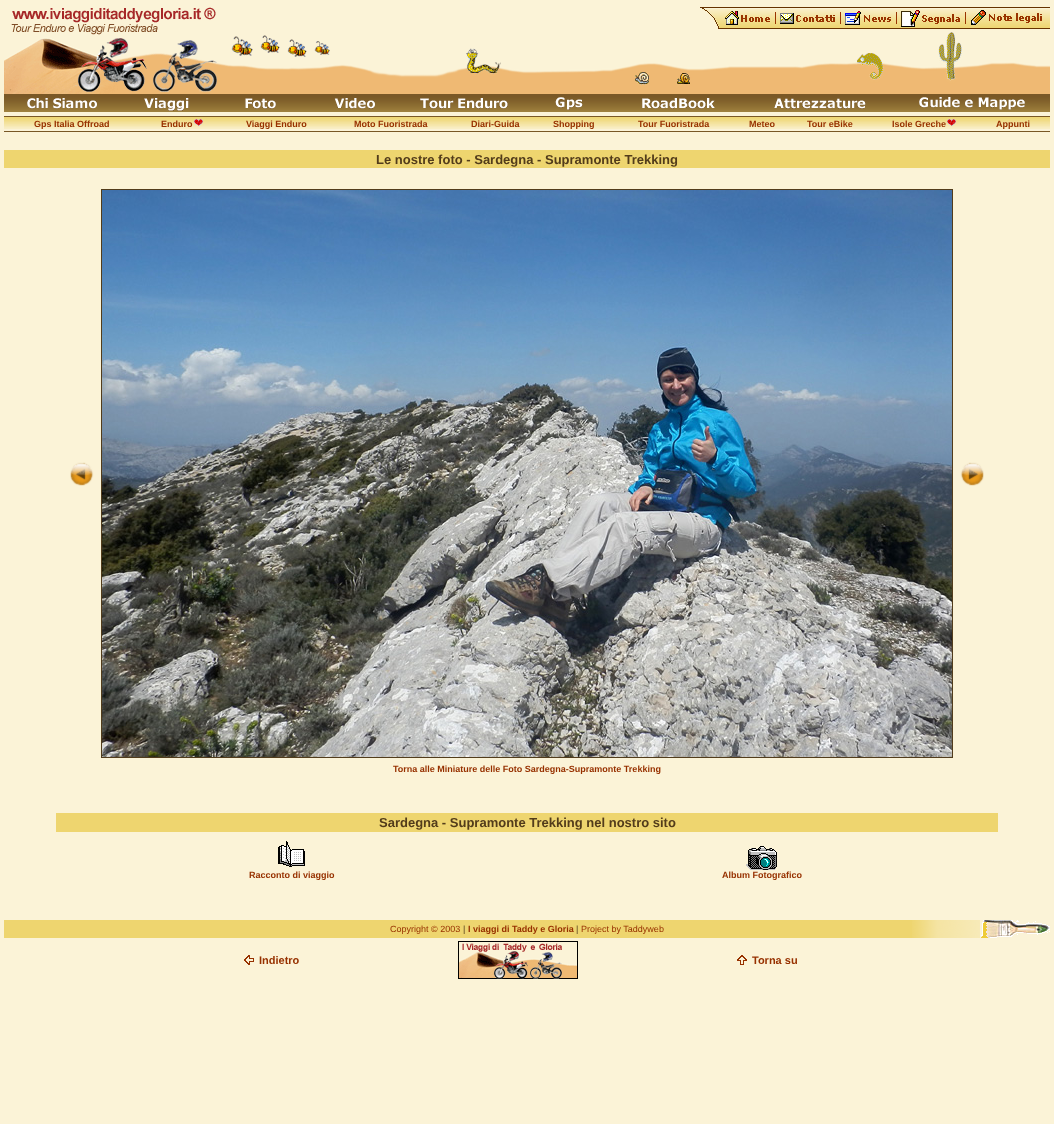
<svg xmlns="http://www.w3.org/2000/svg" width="1054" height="1124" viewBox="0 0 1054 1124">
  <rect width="100%" height="100%" fill="rgb(251,243,215)"/>
  <image x="4" y="7" width="225" height="87" href="pic1.png"/>
  <image x="229" y="35" width="110" height="59" href="pic2.png"/>
  <image x="339" y="32" width="711" height="62" href="pic3.png"/>
  <image x="700" y="7" width="22" height="22" href="pic4.png"/>
  <image x="722" y="7" width="56" height="22" href="pic5.png"/>
  <image x="725" y="11" width="14" height="14" href="pic6.png"/>
  <image x="741" y="15" width="29" height="7" href="pic7.png"/>
  <rect x="775" y="12" width="1" height="12" fill="rgb(153,51,0)"/>
  <image x="778" y="7" width="65" height="22" href="pic8.png"/>
  <image x="780" y="13" width="14" height="11" href="pic9.png"/>
  <image x="796" y="15" width="39" height="7" href="pic10.png"/>
  <rect x="840" y="12" width="1" height="12" fill="rgb(153,51,0)"/>
  <image x="843" y="7" width="56" height="22" href="pic5.png"/>
  <image x="845" y="11" width="16" height="14" href="pic11.png"/>
  <image x="864" y="15" width="27" height="7" href="pic12.png"/>
  <rect x="896" y="12" width="1" height="12" fill="rgb(153,51,0)"/>
  <image x="899" y="7" width="69" height="22" href="pic13.png"/>
  <image x="901" y="10" width="19" height="17" href="pic14.png"/>
  <image x="922" y="14" width="38" height="10" href="pic15.png"/>
  <rect x="965" y="12" width="1" height="12" fill="rgb(153,51,0)"/>
  <image x="968" y="7" width="82" height="22" href="pic16.png"/>
  <image x="971" y="10" width="15" height="15" href="pic17.png"/>
  <image x="989" y="13" width="53" height="10" href="pic18.png"/>
  <image x="4" y="94" width="1046" height="18" href="pic19.png"/>
  <image x="27" y="98" width="70" height="11" href="pic20.png"/>
  <image x="144" y="98" width="45" height="13" href="pic21.png"/>
  <image x="245" y="98" width="31" height="11" href="pic22.png"/>
  <image x="334" y="98" width="41" height="11" href="pic23.png"/>
  <image x="420" y="98" width="88" height="11" href="pic24.png"/>
  <image x="555" y="97" width="28" height="13" href="pic25.png"/>
  <image x="642" y="98" width="73" height="11" href="pic26.png"/>
  <image x="774" y="98" width="92" height="11" href="pic27.png"/>
  <image x="919" y="97" width="106" height="13" href="pic28.png"/>
  <rect x="4" y="116" width="1046" height="1" fill="rgb(120,87,37)"/>
  <image x="4" y="117" width="1046" height="12" href="pic29.png"/>
  <g font-family="Liberation Sans" font-size="9" font-weight="bold" fill="rgb(151,49,0)">
    <text x="34" y="127">Gps Italia Offroad</text>
    <text x="161" y="127">Enduro</text>
  </g>
  <image x="194" y="119" width="9" height="7" href="pic30.png"/>
  <g font-family="Liberation Sans" font-size="9" font-weight="bold" fill="rgb(151,49,0)">
    <text x="246" y="127">Viaggi Enduro</text>
    <text x="354" y="127">Moto Fuoristrada</text>
    <text x="471" y="127">Diari-Guida</text>
    <text x="553" y="127">Shopping</text>
    <text x="638" y="127">Tour Fuoristrada</text>
    <text x="749" y="127">Meteo</text>
    <text x="807" y="127">Tour eBike</text>
    <text x="892" y="127">Isole Greche</text>
  </g>
  <image x="947" y="119" width="9" height="7" href="pic30.png"/>
  <text x="996" y="127" font-family="Liberation Sans" font-size="9" font-weight="bold" fill="rgb(151,49,0)">Appunti</text>
  <rect x="4" y="131" width="1046" height="1" fill="rgb(120,87,37)"/>
  <rect x="4" y="150" width="1046" height="18" fill="rgb(238,213,111)"/>
  <text x="376" y="164" font-family="Liberation Sans" font-size="13" font-weight="bold" fill="rgb(82,60,27)">Le nostre foto - Sardegna - Supramonte Trekking</text>
  <image x="70" y="462" width="24" height="24" href="pic31.png"/>
  <rect x="101.5" y="189.5" width="851" height="568" fill="none" stroke="rgb(82,60,27)"/>
  <image x="102" y="190" width="850" height="567" href="pic32.png"/>
  <image x="960" y="462" width="24" height="24" href="pic33.png"/>
  <text x="393" y="772" font-family="Liberation Sans" font-size="9" font-weight="bold" fill="rgb(151,49,0)">Torna alle Miniature delle Foto Sardegna-Supramonte Trekking</text>
  <rect x="56" y="813" width="942" height="19" fill="rgb(238,213,111)"/>
  <text x="379" y="827" font-family="Liberation Sans" font-size="13" font-weight="bold" fill="rgb(82,60,27)">Sardegna - Supramonte Trekking nel nostro sito</text>
  <image x="278" y="841" width="27" height="26" href="pic34.png"/>
  <text x="249" y="878" font-family="Liberation Sans" font-size="9" font-weight="bold" fill="rgb(151,49,0)">Racconto di viaggio</text>
  <image x="746" y="846" width="31" height="24" href="pic35.png"/>
  <text x="722" y="878" font-family="Liberation Sans" font-size="9" font-weight="bold" fill="rgb(151,49,0)">Album Fotografico</text>
  <rect x="4" y="920" width="908" height="18" fill="rgb(238,213,111)"/>
  <text x="390" y="932" font-family="Liberation Sans" font-size="9" fill="rgb(151,49,0)">Copyright © 2003</text>
  <text x="463" y="932" font-family="Liberation Sans" font-size="9" fill="rgb(82,60,27)">|</text>
  <text x="468" y="932" font-family="Liberation Sans" font-size="9" font-weight="bold" fill="rgb(151,49,0)">I viaggi di Taddy e Gloria</text>
  <text x="576" y="932" font-family="Liberation Sans" font-size="9" fill="rgb(82,60,27)">|</text>
  <text x="581" y="932" font-family="Liberation Sans" font-size="9" fill="rgb(151,49,0)">Project by Taddyweb</text>
  <image x="912" y="920" width="68" height="18" href="pic36.png"/>
  <image x="981" y="920" width="69" height="18" href="pic37.png"/>
  <image x="244" y="955" width="10" height="10" href="pic38.png"/>
  <text x="259" y="964" font-family="Liberation Sans" font-size="11" font-weight="bold" fill="rgb(151,49,0)">Indietro</text>
  <image x="458" y="941" width="120" height="38" href="pic39.png"/>
  <image x="737" y="955" width="10" height="10" href="pic40.png"/>
  <text x="752" y="964" font-family="Liberation Sans" font-size="11" font-weight="bold" fill="rgb(151,49,0)">Torna su</text>
</svg>
